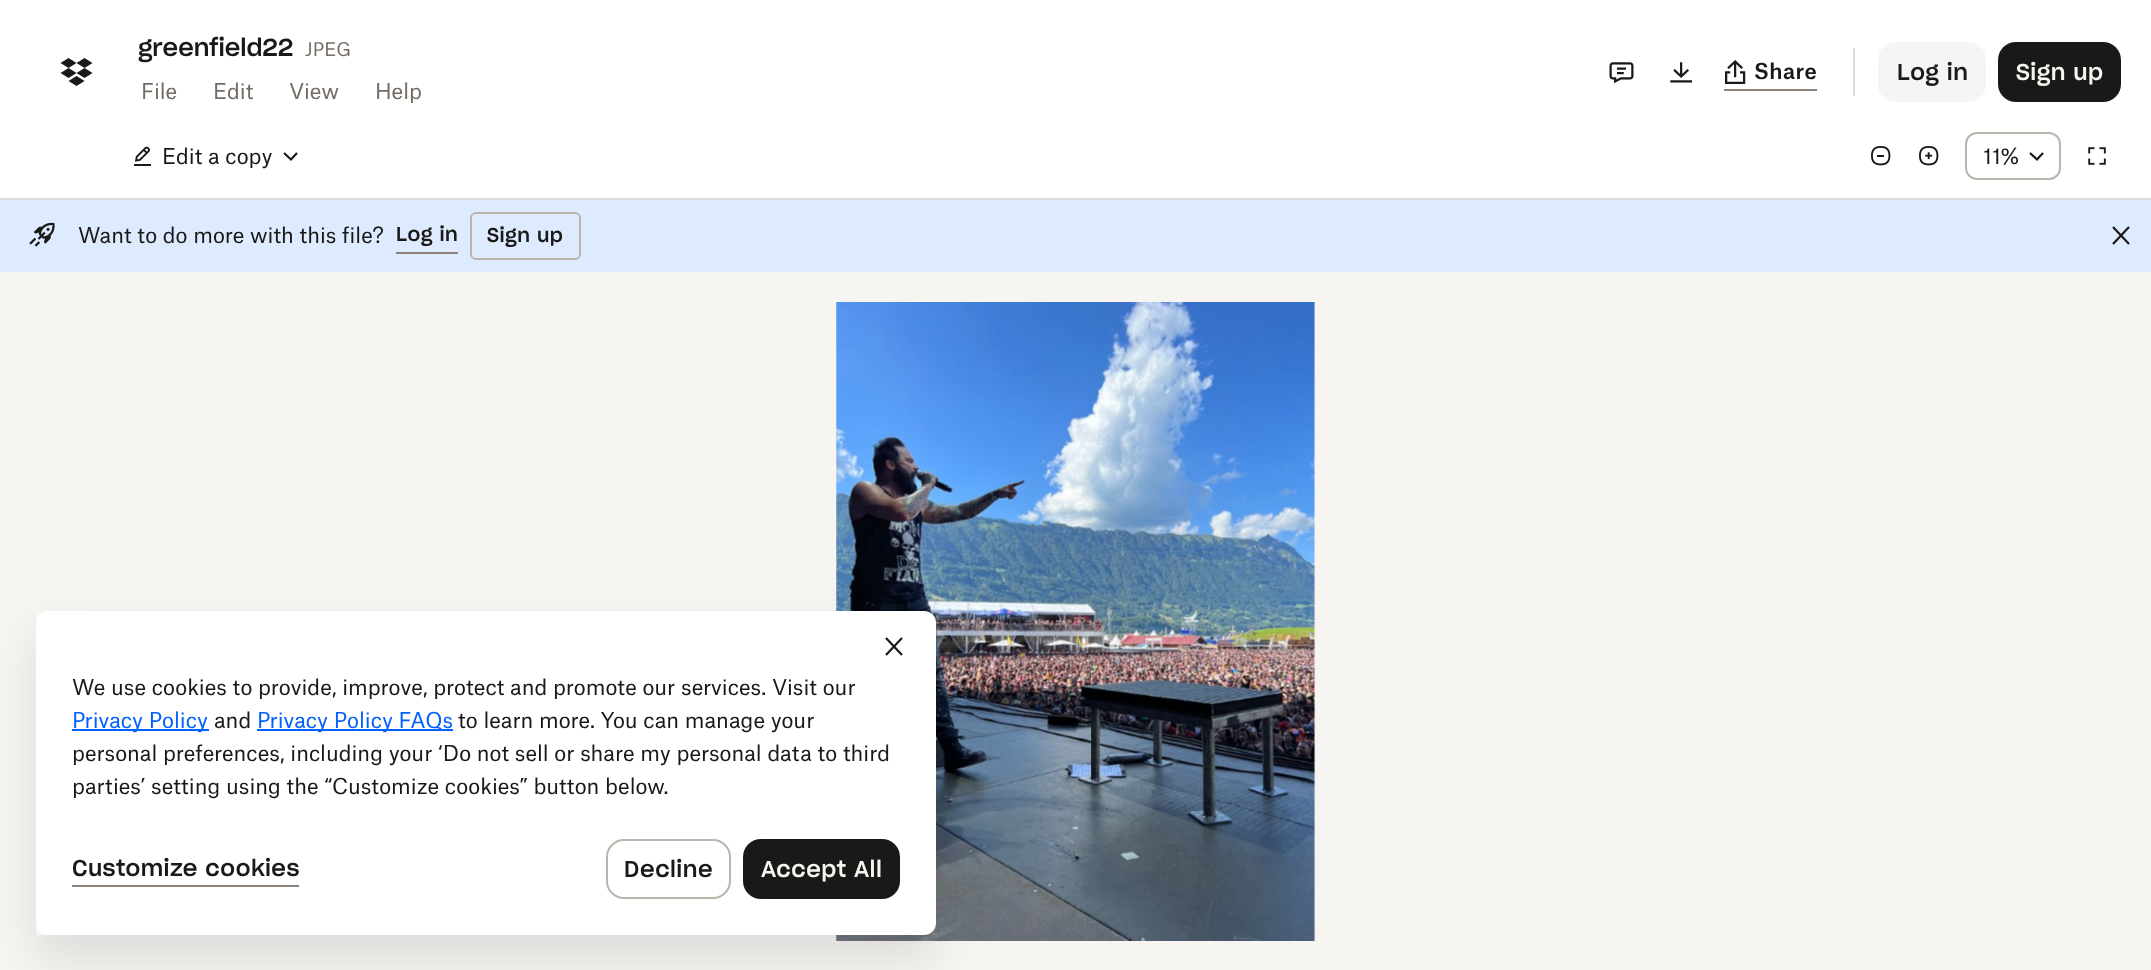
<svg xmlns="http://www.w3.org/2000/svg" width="2151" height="970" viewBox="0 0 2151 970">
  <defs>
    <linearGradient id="g1" gradientUnits="userSpaceOnUse" x1="0" y1="272" x2="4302" y2="271"><stop offset="0" stop-color="rgb(222,235,255)"/><stop offset="0.5" stop-color="rgb(222,235,255)"/><stop offset="0.73" stop-color="rgb(180,209,255)"/><stop offset="0.94" stop-color="rgb(222,235,255)"/></linearGradient>
    <clipPath id="clip1"><path d="M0 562H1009V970H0ZM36 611H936V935H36Z" clip-rule="evenodd"/></clipPath>
  </defs>
  <rect width="100%" height="100%" fill="rgb(255,255,255)"/>
  <rect x="0" y="198" width="2151" height="2" fill="rgb(219,219,219)"/>
  <image x="60" y="58" width="33" height="28" href="pic1.png"/>
  <text x="138" y="56" font-family="'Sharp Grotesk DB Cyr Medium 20'" font-size="24" font-weight="500" fill="rgb(26,25,24)">greenfield22</text>
  <text x="305" y="56" font-family="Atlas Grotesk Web" font-size="18" fill="rgb(115,108,100)">JPEG</text>
  <g font-family="Atlas Grotesk Web" font-size="21" fill="rgb(115,108,100)">
    <text x="141" y="99">File</text>
    <text x="213" y="99">Edit</text>
    <text x="289" y="99">View</text>
    <text x="375" y="99">Help</text>
  </g>
  <image x="1609" y="62" width="25" height="22" href="pic2.png"/>
  <image x="1670" y="62" width="22" height="21" href="pic3.png"/>
  <rect x="1724" y="89" width="93" height="2" fill="rgb(140,130,121)"/>
  <image x="1725" y="60" width="21" height="24" href="pic4.png"/>
  <text x="1754" y="79" font-family="Atlas Grotesk Web" font-size="21" font-weight="500" letter-spacing="0.5" fill="rgb(26,25,24)">Share</text>
  <rect x="1853" y="48" width="2" height="48" fill="rgb(219,219,219)"/>
  <rect x="1878" y="42" width="108" height="60" rx="18" fill="rgb(246,245,243)"/>
  <text x="1897" y="80" font-family="'Sharp Grotesk DB Cyr Medium 20'" font-size="22.5" font-weight="500" letter-spacing="0.5" fill="rgb(26,25,24)">Log in</text>
  <rect x="1998" y="42" width="123" height="60" rx="18" fill="rgb(26,25,24)"/>
  <text x="2016" y="80" font-family="'Sharp Grotesk DB Cyr Medium 20'" font-size="22.5" font-weight="500" letter-spacing="0.5" fill="rgb(247,245,242)">Sign up</text>
  <image x="134" y="146" width="17" height="20" href="pic5.png"/>
  <text x="162" y="164" font-family="Atlas Grotesk Web" font-size="21" fill="rgb(26,25,24)">Edit a copy</text>
  <path d="M284 153L291 159.5L297 153" fill="none" stroke="rgb(26,25,24)" stroke-width="2.2"/>
  <image x="1871" y="146" width="20" height="20" href="pic6.png"/>
  <image x="1919" y="146" width="20" height="20" href="pic7.png"/>
  <rect x="1966" y="133" width="94" height="46" rx="11" fill="none" stroke="rgb(187,181,174)" stroke-width="2"/>
  <text x="1983" y="164" font-family="Atlas Grotesk Web" font-size="21" fill="rgb(26,25,24)">11%</text>
  <path d="M2030 153L2037 159.5L2043 153" fill="none" stroke="rgb(26,25,24)" stroke-width="2.2"/>
  <image x="2088" y="147" width="18" height="18" href="pic8.png"/>
  <rect x="0" y="272" width="2151" height="698" fill="rgb(247,245,242)"/>
  <rect x="0" y="200" width="2151" height="72" fill="url(#g1)"/>
  <image x="29" y="222" width="26" height="25" href="pic9.png"/>
  <text x="78" y="243" font-family="Atlas Grotesk Web" font-size="21" fill="rgb(26,25,24)">Want to do more with this file?</text>
  <rect x="396" y="252" width="62" height="2" fill="rgb(140,130,121)"/>
  <text x="396" y="241" font-family="'Sharp Grotesk DB Cyr Medium 20'" font-size="19.5" font-weight="500" letter-spacing="0.5" fill="rgb(26,25,24)">Log in</text>
  <rect x="471" y="213" width="109" height="46" rx="5" fill="none" stroke="rgb(187,181,174)" stroke-width="2"/>
  <text x="487" y="242" font-family="'Sharp Grotesk DB Cyr Medium 20'" font-size="19.5" font-weight="500" letter-spacing="0.5" fill="rgb(26,25,24)">Sign up</text>
  <path d="M2129 227L2113 244M2129 244L2113 227" fill="none" stroke="rgb(26,25,24)" stroke-width="2.2"/>
  <image x="836" y="302" width="480" height="639" href="pic10.png"/>
  <g clip-path="url(#clip1)">
    <rect x="36" y="635" width="900" height="324" fill="rgba(0,0,0,0.1)" filter="blur(24px)"/>
  </g>
  <rect x="36" y="611" width="900" height="324" rx="12" fill="rgb(255,255,255)"/>
  <path d="M902 638L886 655M902 655L886 638" fill="none" stroke="rgb(26,25,24)" stroke-width="2.2"/>
  <text x="72" y="695" font-family="Atlas Grotesk Web" font-size="21" fill="rgb(26,25,24)">We use cookies to provide, improve, protect and promote our services. Visit our</text>
  <rect x="72" y="729" width="137" height="2" fill="rgb(0,97,254)"/>
  <text x="72" y="728" font-family="Atlas Grotesk Web" font-size="21" fill="rgb(0,97,254)">Privacy Policy</text>
  <text x="214" y="728" font-family="Atlas Grotesk Web" font-size="21" fill="rgb(26,25,24)">and</text>
  <rect x="257" y="729" width="196" height="2" fill="rgb(0,97,254)"/>
  <text x="257" y="728" font-family="Atlas Grotesk Web" font-size="21" fill="rgb(0,97,254)">Privacy Policy FAQs</text>
  <g font-family="Atlas Grotesk Web" font-size="21" fill="rgb(26,25,24)">
    <text x="458" y="728">to learn more. You can manage your</text>
    <text>
      <tspan x="72" y="761">personal preferences, including your ‘Do not sell or share my personal data to third</tspan>
      <tspan x="72" y="794">parties’ setting using the “Customize cookies” button below.</tspan>
    </text>
  </g>
  <rect x="72" y="885" width="227" height="2" fill="rgb(140,130,121)"/>
  <text x="72" y="876" font-family="'Sharp Grotesk DB Cyr Medium 20'" font-size="22.5" font-weight="500" letter-spacing="0.5" fill="rgb(26,25,24)">Customize cookies</text>
  <rect x="607" y="840" width="123" height="58" rx="17" fill="none" stroke="rgb(187,181,174)" stroke-width="2"/>
  <text x="624" y="877" font-family="'Sharp Grotesk DB Cyr Medium 20'" font-size="22.5" font-weight="500" letter-spacing="0.5" fill="rgb(26,25,24)">Decline</text>
  <rect x="743" y="839" width="157" height="60" rx="18" fill="rgb(26,25,24)"/>
  <text x="761" y="877" font-family="'Sharp Grotesk DB Cyr Medium 20'" font-size="22.5" font-weight="500" letter-spacing="0.5" fill="rgb(247,245,242)">Accept All</text>
</svg>
